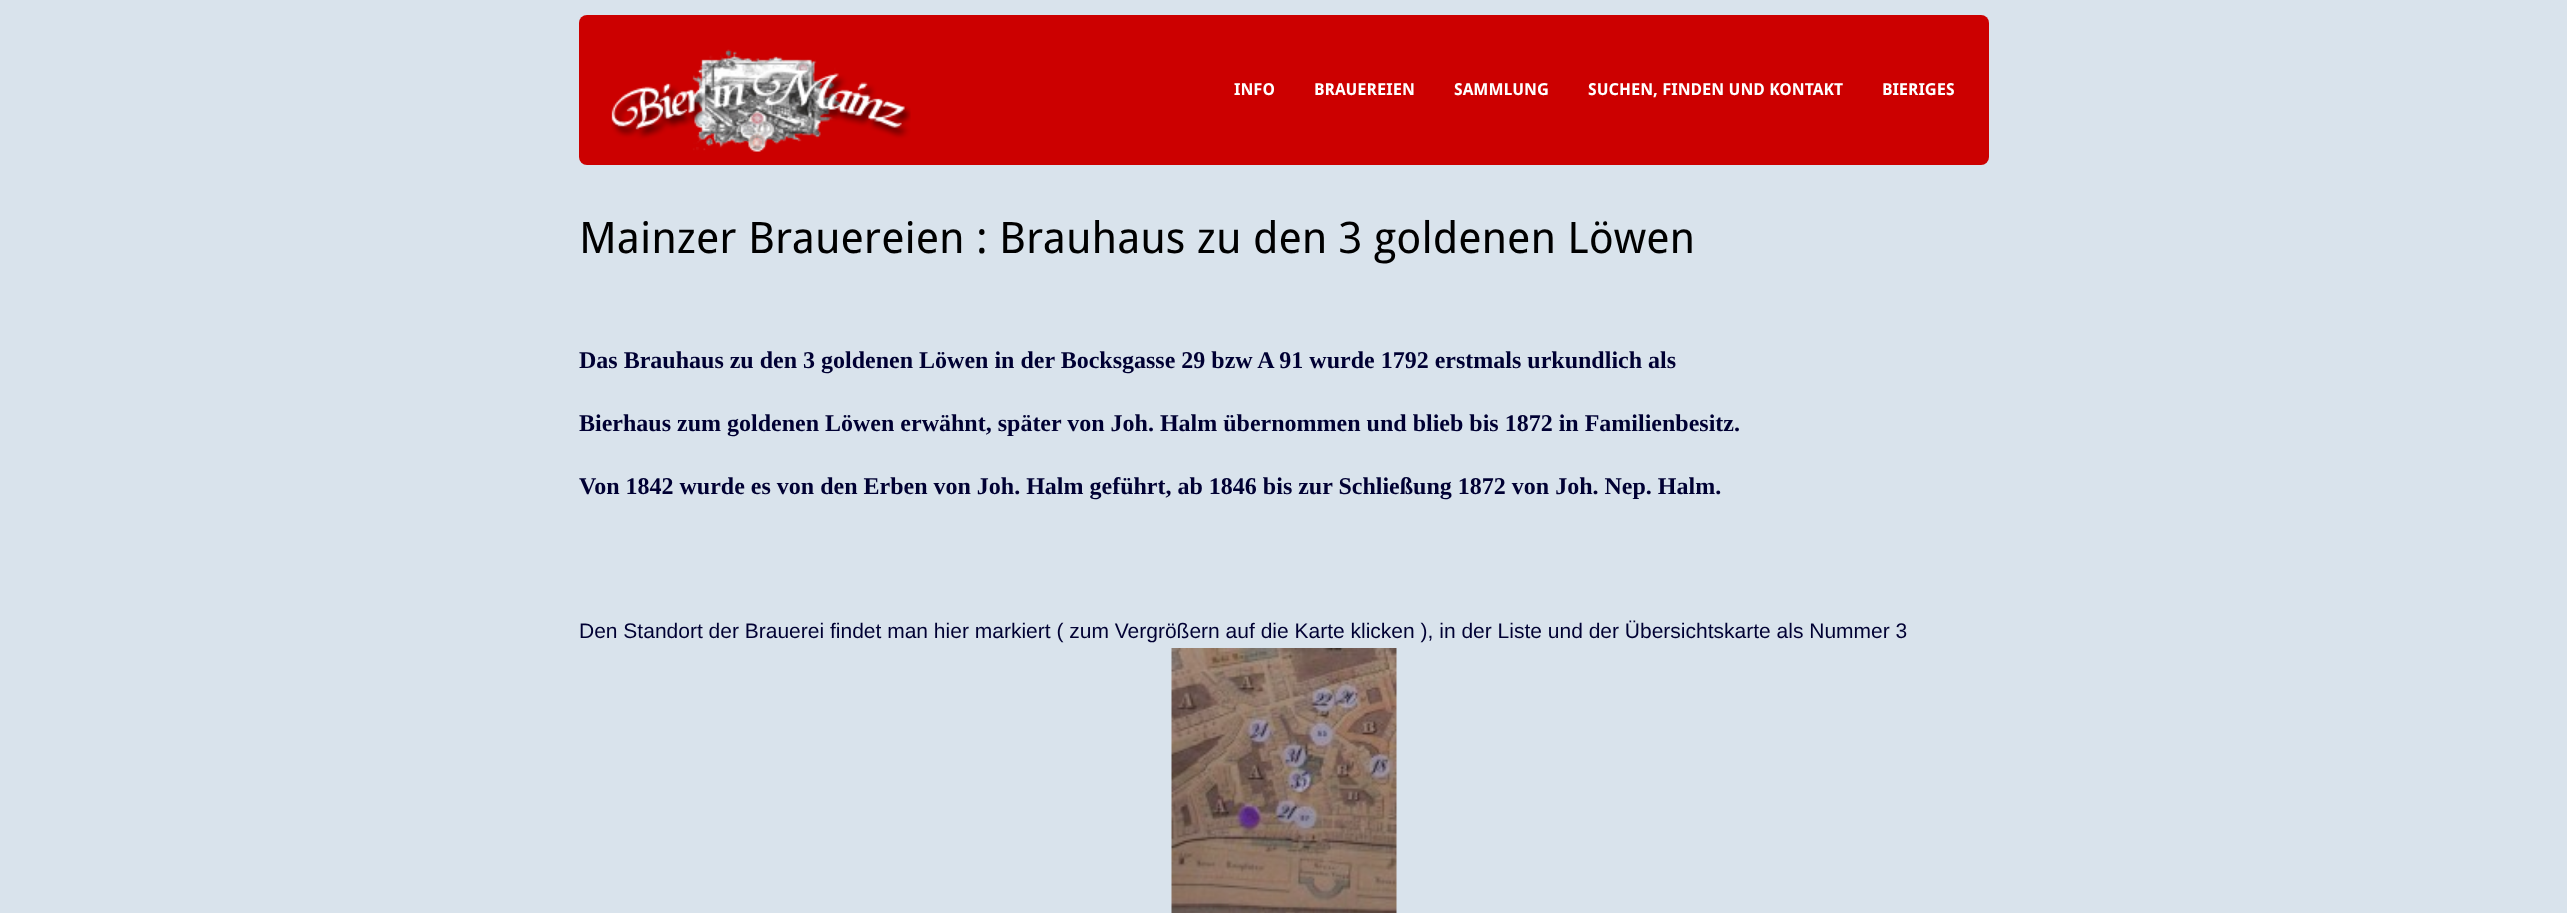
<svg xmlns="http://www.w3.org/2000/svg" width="2567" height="913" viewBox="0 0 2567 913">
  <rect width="100%" height="100%" fill="rgb(217,227,236)"/>
  <rect x="579" y="15" width="1410" height="150" rx="8" fill="rgb(204,0,0)"/>
  <image x="611" y="49" width="300" height="103" href="pic1.png"/>
  <g font-family="Droid Sans" font-size="16.5" font-weight="bold" fill="rgb(255,255,255)">
    <text x="1234" y="95">INFO</text>
    <text x="1314" y="95">BRAUEREIEN</text>
    <text x="1454" y="95">SAMMLUNG</text>
    <text x="1588" y="95">SUCHEN, FINDEN UND KONTAKT</text>
    <text x="1882" y="95">BIERIGES</text>
  </g>
  <text x="579" y="253" font-family="Droid Sans" font-size="43.5" fill="rgb(0,0,0)">Mainzer Brauereien : Brauhaus zu den 3 goldenen Löwen</text>
  <g font-family="Liberation Serif" font-size="24" font-weight="bold" fill="rgb(0,0,51)">
    <text x="579" y="368">Das Brauhaus zu den 3 goldenen Löwen in der Bocksgasse 29 bzw A 91 wurde 1792 erstmals urkundlich als</text>
    <text x="579" y="431">Bierhaus zum goldenen Löwen erwähnt, später von Joh. Halm übernommen und blieb bis 1872 in Familienbesitz.</text>
    <text x="579" y="494">Von 1842 wurde es von den Erben von Joh. Halm geführt, ab 1846 bis zur Schließung 1872 von Joh. Nep. Halm.</text>
  </g>
  <text x="579" y="638" font-family="Liberation Sans" font-size="21" fill="rgb(0,0,51)">Den Standort der Brauerei findet man hier markiert ( zum Vergrößern auf die Karte klicken ), in der Liste und der Übersichtskarte als Nummer 3</text>
  <image x="1171" y="648" width="226" height="265" href="pic2.png"/>
</svg>
